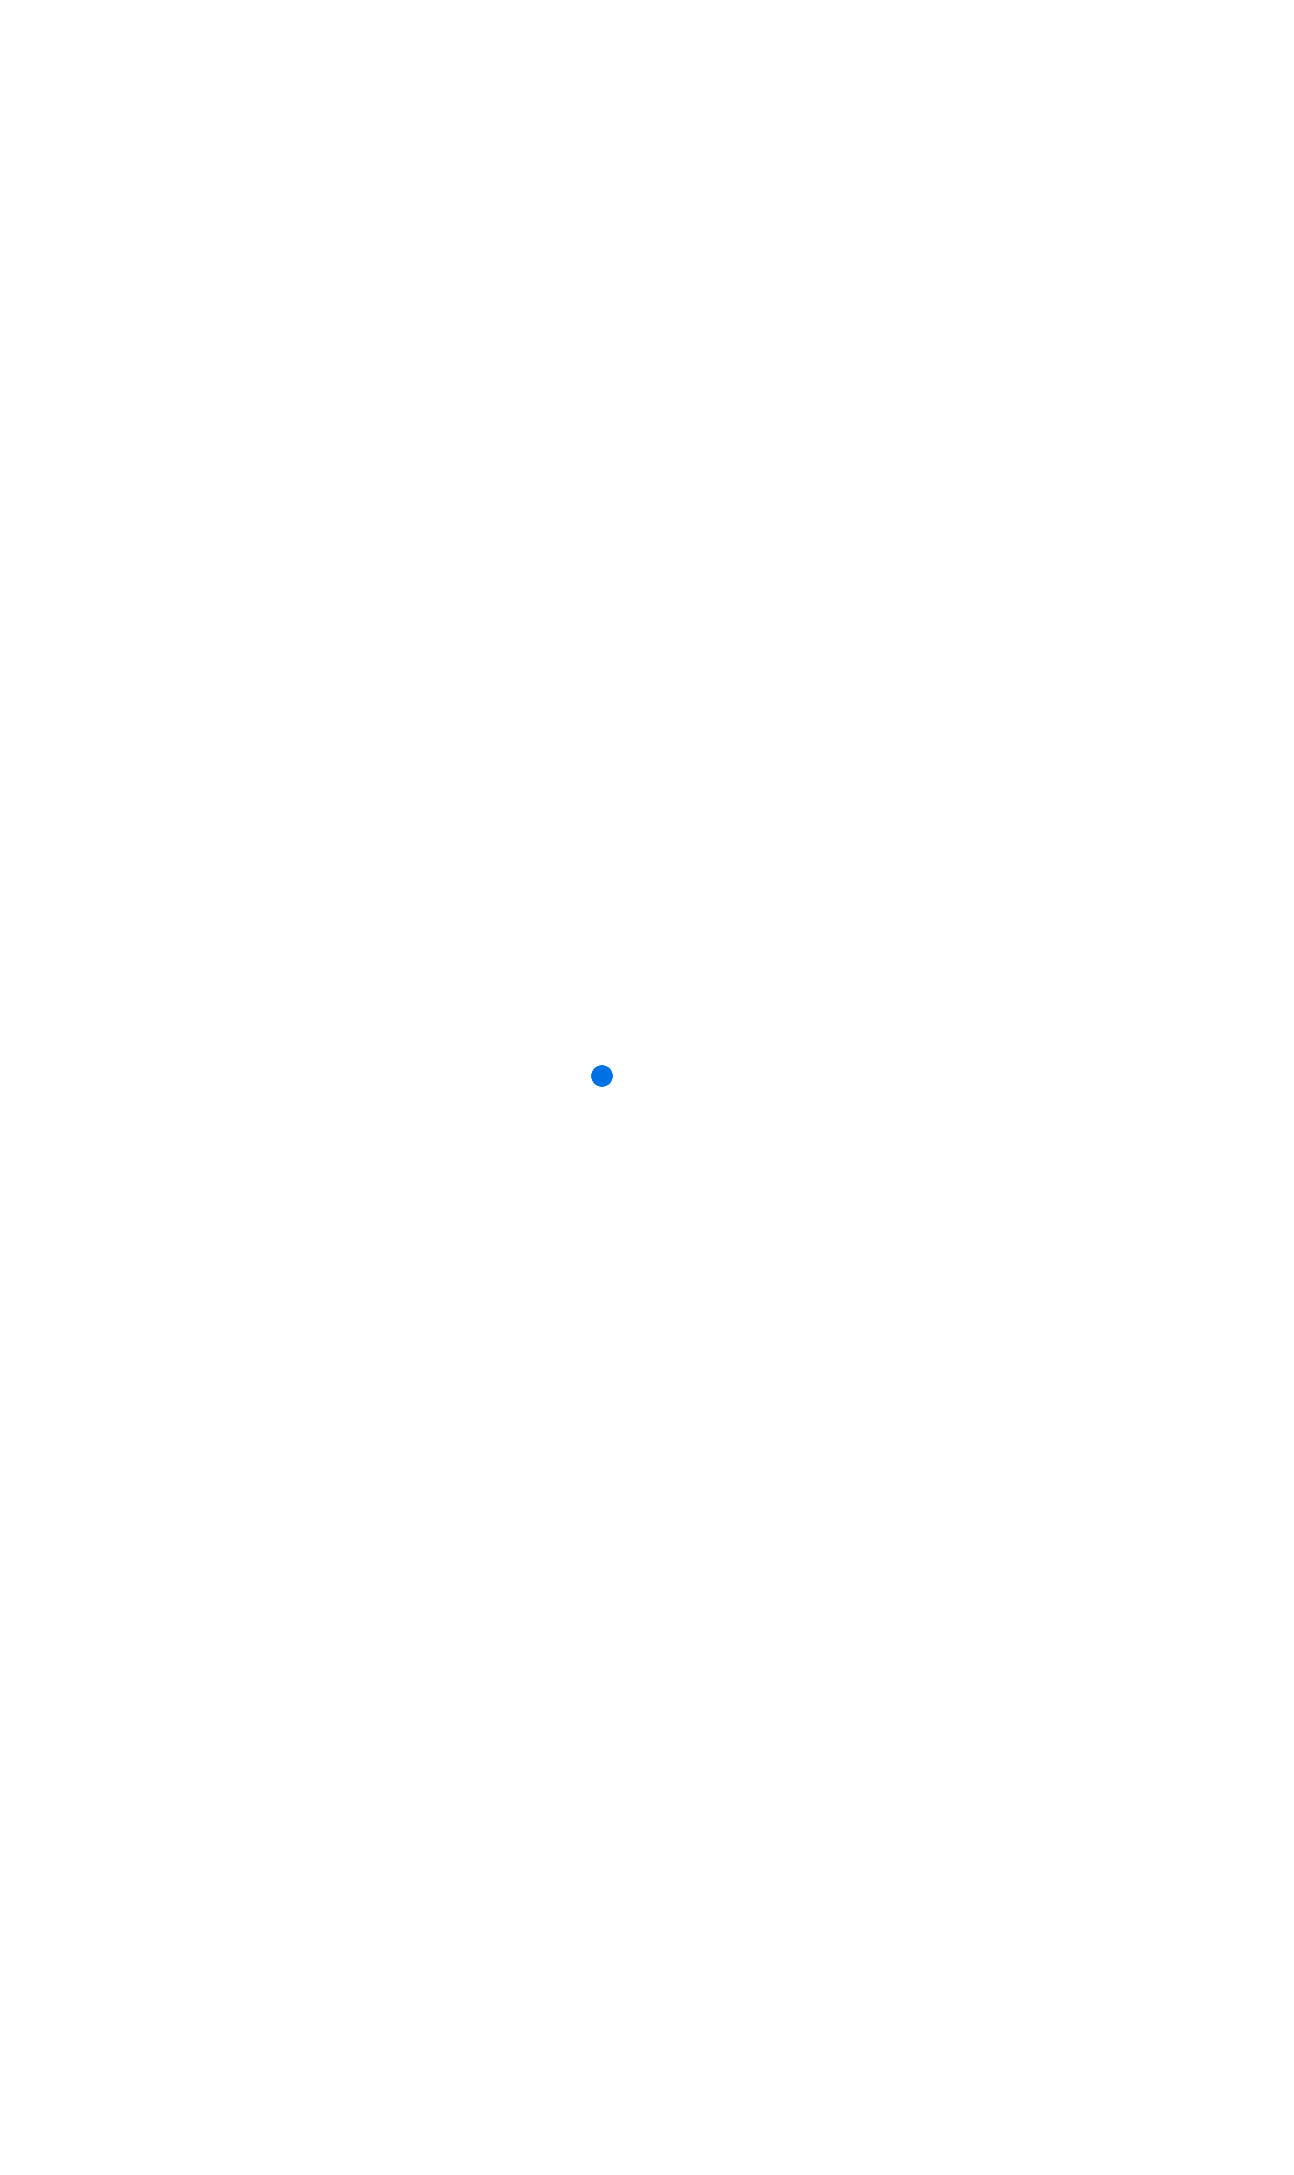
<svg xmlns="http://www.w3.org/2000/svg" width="1294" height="2175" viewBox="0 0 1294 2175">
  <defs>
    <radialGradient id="g1" gradientUnits="userSpaceOnUse" cx="602" cy="1076" r="11"><stop offset="0.9" stop-color="rgb(0,114,229)"/><stop offset="1" stop-color="rgb(255,255,255)"/></radialGradient>
    <radialGradient id="g2" gradientUnits="userSpaceOnUse" cx="602" cy="1076" r="11"><stop offset="0.9" stop-color="rgb(0,114,229)"/><stop offset="1" stop-color="rgb(0,114,229)" stop-opacity="0"/></radialGradient>
  </defs>
  <rect width="100%" height="100%" fill="rgb(255,255,255)"/>
  <rect x="591" y="1065" width="22" height="22" fill="url(#g1)"/>
  <rect x="591" y="1065" width="22" height="22" fill="url(#g2)"/>
  <rect x="591" y="1065" width="22" height="22" fill="url(#g2)"/>
  <rect x="591" y="1065" width="22" height="22" fill="url(#g2)"/>
</svg>
